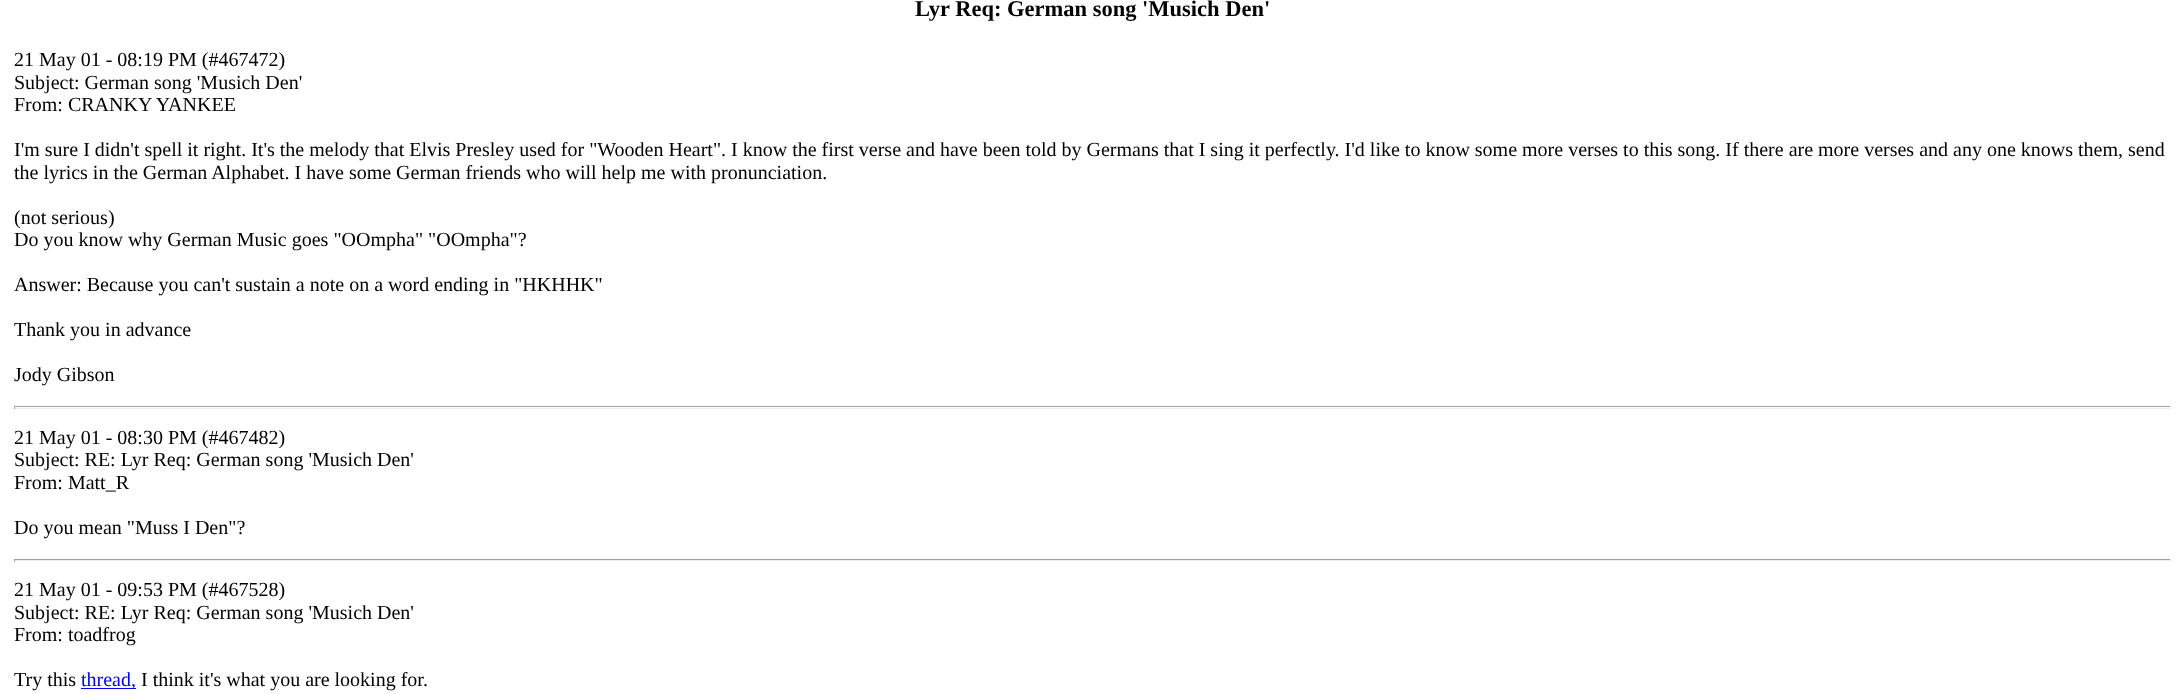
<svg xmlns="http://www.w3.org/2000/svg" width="2184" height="694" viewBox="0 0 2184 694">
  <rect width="100%" height="100%" fill="rgb(255,255,255)"/>
  <text x="915" y="16" font-family="Liberation Serif" font-size="22.5" font-weight="bold" fill="rgb(0,0,0)">Lyr Req: German song 'Musich Den'</text>
  <g font-family="Liberation Serif" font-size="20" fill="rgb(0,0,0)">
    <text>
      <tspan x="14" y="66">21 May 01 - 08:19 PM (#467472)</tspan>
      <tspan x="14" y="89">Subject: German song 'Musich Den'</tspan>
      <tspan x="14" y="111">From: CRANKY YANKEE</tspan>
    </text>
    <text>
      <tspan x="14" y="156">I'm sure I didn't spell it right. It's the melody that Elvis Presley used for "Wooden Heart". I know the first verse and have been told by Germans that I sing it perfectly. I'd like to know some more verses to this song. If there are more verses and any one knows them, send</tspan>
      <tspan x="14" y="179">the lyrics in the German Alphabet. I have some German friends who will help me with pronunciation.</tspan>
    </text>
    <text>
      <tspan x="14" y="224">(not serious)</tspan>
      <tspan x="14" y="246">Do you know why German Music goes "OOmpha" "OOmpha"?</tspan>
    </text>
    <text x="14" y="291">Answer: Because you can't sustain a note on a word ending in "HKHHK"</text>
    <text x="14" y="336">Thank you in advance</text>
    <text x="14" y="381">Jody Gibson</text>
  </g>
  <rect x="14" y="406" width="2157" height="1" fill="rgb(159,159,159)"/>
  <rect x="2170" y="406" width="1" height="3" fill="rgb(238,238,238)"/>
  <rect x="14" y="408" width="2157" height="1" fill="rgb(238,238,238)"/>
  <rect x="14" y="406" width="1" height="3" fill="rgb(159,159,159)"/>
  <g font-family="Liberation Serif" font-size="20" fill="rgb(0,0,0)">
    <text>
      <tspan x="14" y="444">21 May 01 - 08:30 PM (#467482)</tspan>
      <tspan x="14" y="466">Subject: RE: Lyr Req: German song 'Musich Den'</tspan>
      <tspan x="14" y="489">From: Matt_R</tspan>
    </text>
    <text x="14" y="534">Do you mean "Muss I Den"?</text>
  </g>
  <rect x="14" y="559" width="2157" height="1" fill="rgb(159,159,159)"/>
  <rect x="2170" y="559" width="1" height="3" fill="rgb(238,238,238)"/>
  <rect x="14" y="560" width="2157" height="1" fill="rgb(238,238,238)"/>
  <rect x="14" y="559" width="1" height="3" fill="rgb(159,159,159)"/>
  <g font-family="Liberation Serif" font-size="20" fill="rgb(0,0,0)">
    <text>
      <tspan x="14" y="596">21 May 01 - 09:53 PM (#467528)</tspan>
      <tspan x="14" y="619">Subject: RE: Lyr Req: German song 'Musich Den'</tspan>
      <tspan x="14" y="641">From: toadfrog</tspan>
    </text>
    <text x="14" y="686">Try this</text>
  </g>
  <rect x="81" y="688" width="55" height="1" fill="rgb(0,0,238)"/>
  <text x="81" y="686" font-family="Liberation Serif" font-size="20" fill="rgb(0,0,238)">thread,</text>
  <text x="141" y="686" font-family="Liberation Serif" font-size="20" fill="rgb(0,0,0)">I think it's what you are looking for.</text>
</svg>
